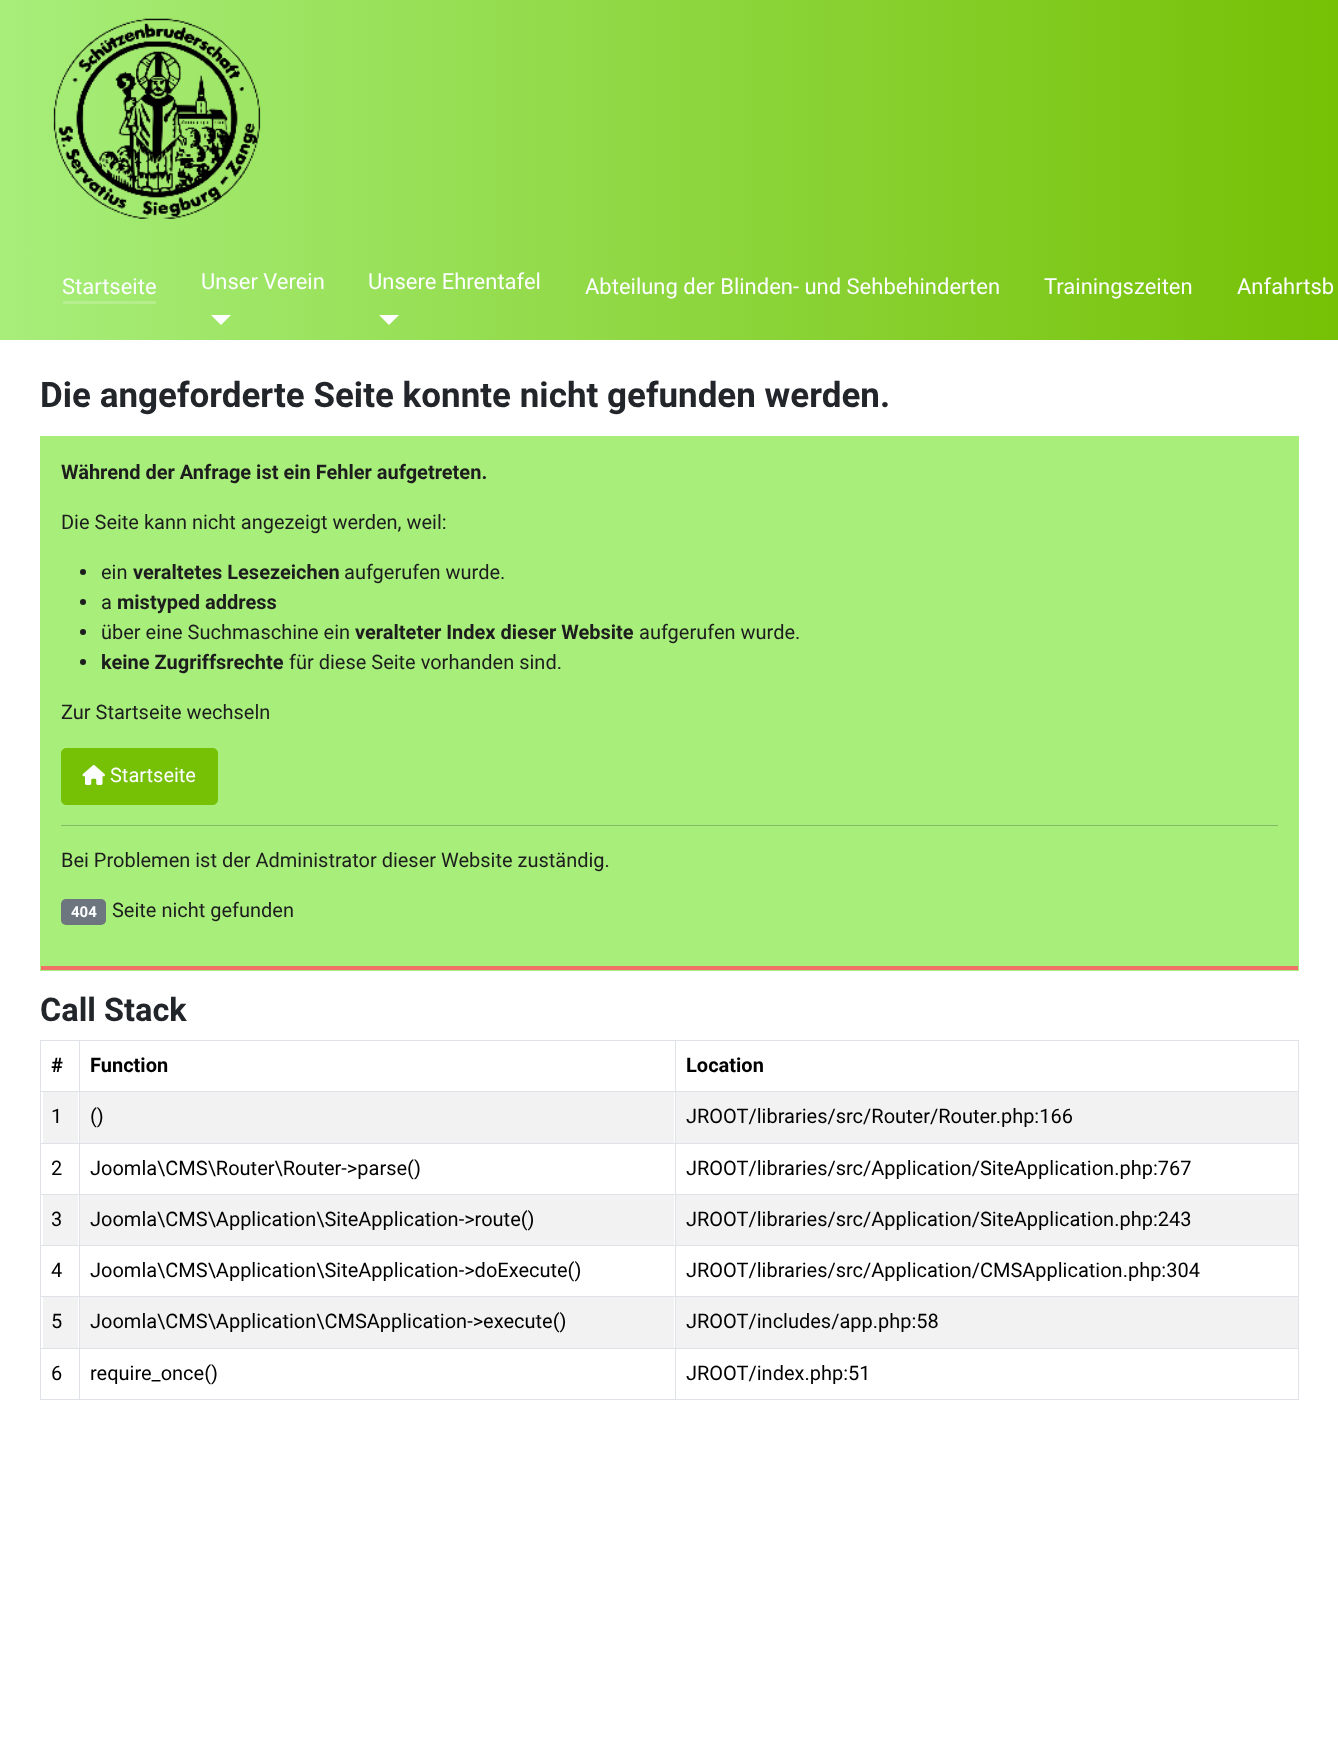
<svg xmlns="http://www.w3.org/2000/svg" width="1338" height="1747" viewBox="0 0 1338 1747">
  <defs>
    <linearGradient id="g1" gradientUnits="userSpaceOnUse" x1="0" y1="170" x2="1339" y2="170"><stop offset="0" stop-color="rgb(167,238,123)"/><stop offset="1" stop-color="rgb(118,192,5)"/></linearGradient>
    <linearGradient id="g2" gradientUnits="userSpaceOnUse" x1="0" y1="170" x2="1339" y2="170"><stop offset="0" stop-color="rgb(185,241,149)"/><stop offset="1" stop-color="rgb(145,205,55)"/></linearGradient>
  </defs>
  <rect width="100%" height="100%" fill="rgb(255,255,255)"/>
  <rect x="0" y="0" width="1338" height="340" fill="url(#g1)"/>
  <rect x="63" y="301" width="93" height="3" fill="url(#g2)"/>
  <image x="53" y="18" width="208" height="201" href="pic1.png"/>
  <g font-family="Roboto" font-size="22" fill="rgb(252,253,255)">
    <text x="62" y="294">Startseite</text>
    <text x="201" y="289">Unser Verein</text>
  </g>
  <path d="M211 315H231L221 325Z" fill="rgb(255,255,255)"/>
  <text x="368" y="289" font-family="Roboto" font-size="22" fill="rgb(252,253,255)">Unsere Ehrentafel</text>
  <path d="M379 315H399L389 325Z" fill="rgb(255,255,255)"/>
  <g font-family="Roboto" font-size="22" fill="rgb(252,253,255)">
    <text x="585" y="294">Abteilung der Blinden- und Sehbehinderten</text>
    <text x="1044" y="294">Trainingszeiten</text>
    <text x="1237" y="294">Anfahrtsb</text>
  </g>
  <text x="40" y="407" font-family="Roboto" font-size="35" font-weight="bold" fill="rgb(34,38,42)">Die angeforderte Seite konnte nicht gefunden werden.</text>
  <rect x="40" y="436" width="1259" height="535" fill="rgb(167,238,123)"/>
  <rect x="41" y="966" width="1257" height="4" fill="rgb(240,113,103)"/>
  <text x="61" y="479" font-family="Roboto" font-size="20" font-weight="bold" fill="rgb(29,29,29)">Während der Anfrage ist ein Fehler aufgetreten.</text>
  <text x="61" y="529" font-family="Roboto" font-size="20" fill="rgb(29,29,29)">Die Seite kann nicht angezeigt werden, weil:</text>
  <circle cx="83" cy="572" r="3" fill="rgb(29,29,29)"/>
  <text x="101" y="579" font-family="Roboto" font-size="20" fill="rgb(29,29,29)">ein</text>
  <text x="133" y="579" font-family="Roboto" font-size="20" font-weight="bold" fill="rgb(29,29,29)">veraltetes Lesezeichen</text>
  <text x="344" y="579" font-family="Roboto" font-size="20" fill="rgb(29,29,29)">aufgerufen wurde.</text>
  <circle cx="83" cy="602" r="3" fill="rgb(29,29,29)"/>
  <text x="101" y="609" font-family="Roboto" font-size="20" fill="rgb(29,29,29)">a</text>
  <text x="117" y="609" font-family="Roboto" font-size="20" font-weight="bold" fill="rgb(29,29,29)">mistyped address</text>
  <circle cx="83" cy="632" r="3" fill="rgb(29,29,29)"/>
  <text x="101" y="639" font-family="Roboto" font-size="20" fill="rgb(29,29,29)">über eine Suchmaschine ein</text>
  <text x="355" y="639" font-family="Roboto" font-size="20" font-weight="bold" fill="rgb(29,29,29)">veralteter Index dieser Website</text>
  <text x="639" y="639" font-family="Roboto" font-size="20" fill="rgb(29,29,29)">aufgerufen wurde.</text>
  <circle cx="83" cy="662" r="3" fill="rgb(29,29,29)"/>
  <text x="101" y="669" font-family="Roboto" font-size="20" font-weight="bold" fill="rgb(29,29,29)">keine Zugriffsrechte</text>
  <g font-family="Roboto" font-size="20" fill="rgb(29,29,29)">
    <text x="289" y="669">für diese Seite vorhanden sind.</text>
    <text x="61" y="719">Zur Startseite wechseln</text>
  </g>
  <rect x="61.5" y="748.5" width="156" height="56" rx="4.5" fill="rgb(118,192,5)" stroke="rgb(118,192,5)"/>
  <image x="82" y="765" width="23" height="20" href="pic2.png"/>
  <text x="110" y="782" font-family="Roboto" font-size="20" fill="rgb(252,253,255)">Startseite</text>
  <rect x="61" y="825" width="1217" height="1" fill="rgb(133,186,100)"/>
  <text x="61" y="867" font-family="Roboto" font-size="20" fill="rgb(29,29,29)">Bei Problemen ist der Administrator dieser Website zuständig.</text>
  <rect x="61" y="899" width="45" height="26" rx="5" fill="rgb(109,117,126)"/>
  <text x="71" y="917" font-family="Roboto" font-size="15" font-weight="bold" fill="rgb(252,253,255)">404</text>
  <text x="112" y="917" font-family="Roboto" font-size="20" fill="rgb(29,29,29)">Seite nicht gefunden</text>
  <text x="40" y="1021" font-family="Roboto" font-size="32.5" font-weight="bold" fill="rgb(34,38,42)">Call Stack</text>
  <rect x="40" y="1040" width="1259" height="1" fill="rgb(223,227,231)"/>
  <g font-family="Roboto" font-size="20" font-weight="bold" fill="rgb(0,0,0)">
    <text x="51" y="1072">#</text>
    <text x="90" y="1072">Function</text>
    <text x="686" y="1072">Location</text>
  </g>
  <rect x="40" y="1091" width="1259" height="1" fill="rgb(223,227,231)"/>
  <rect x="43" y="1092" width="35" height="51" fill="rgb(242,242,242)"/>
  <text x="51" y="1123" font-family="Roboto" font-size="20" fill="rgb(0,0,0)">1</text>
  <rect x="80" y="1092" width="594" height="51" fill="rgb(242,242,242)"/>
  <text x="90" y="1123" font-family="Roboto" font-size="20" fill="rgb(0,0,0)">()</text>
  <rect x="676" y="1092" width="622" height="51" fill="rgb(242,242,242)"/>
  <text x="686" y="1123" font-family="Roboto" font-size="20" fill="rgb(0,0,0)">JROOT/libraries/src/Router/Router.php:166</text>
  <rect x="40" y="1143" width="1259" height="1" fill="rgb(223,227,231)"/>
  <g font-family="Roboto" font-size="20" fill="rgb(0,0,0)">
    <text x="51" y="1175">2</text>
    <text x="90" y="1175">Joomla\CMS\Router\Router-&gt;parse()</text>
    <text x="686" y="1175">JROOT/libraries/src/Application/SiteApplication.php:767</text>
  </g>
  <rect x="40" y="1194" width="1259" height="1" fill="rgb(223,227,231)"/>
  <rect x="43" y="1195" width="35" height="50" fill="rgb(242,242,242)"/>
  <text x="51" y="1226" font-family="Roboto" font-size="20" fill="rgb(0,0,0)">3</text>
  <rect x="80" y="1195" width="594" height="50" fill="rgb(242,242,242)"/>
  <text x="90" y="1226" font-family="Roboto" font-size="20" fill="rgb(0,0,0)">Joomla\CMS\Application\SiteApplication-&gt;route()</text>
  <rect x="676" y="1195" width="622" height="50" fill="rgb(242,242,242)"/>
  <text x="686" y="1226" font-family="Roboto" font-size="20" fill="rgb(0,0,0)">JROOT/libraries/src/Application/SiteApplication.php:243</text>
  <rect x="40" y="1245" width="1259" height="1" fill="rgb(223,227,231)"/>
  <g font-family="Roboto" font-size="20" fill="rgb(0,0,0)">
    <text x="51" y="1277">4</text>
    <text x="90" y="1277">Joomla\CMS\Application\SiteApplication-&gt;doExecute()</text>
    <text x="686" y="1277">JROOT/libraries/src/Application/CMSApplication.php:304</text>
  </g>
  <rect x="40" y="1296" width="1259" height="1" fill="rgb(223,227,231)"/>
  <rect x="43" y="1297" width="35" height="51" fill="rgb(242,242,242)"/>
  <text x="51" y="1328" font-family="Roboto" font-size="20" fill="rgb(0,0,0)">5</text>
  <rect x="80" y="1297" width="594" height="51" fill="rgb(242,242,242)"/>
  <text x="90" y="1328" font-family="Roboto" font-size="20" fill="rgb(0,0,0)">Joomla\CMS\Application\CMSApplication-&gt;execute()</text>
  <rect x="676" y="1297" width="622" height="51" fill="rgb(242,242,242)"/>
  <text x="686" y="1328" font-family="Roboto" font-size="20" fill="rgb(0,0,0)">JROOT/includes/app.php:58</text>
  <rect x="40" y="1348" width="1259" height="1" fill="rgb(223,227,231)"/>
  <rect x="40" y="1399" width="1259" height="1" fill="rgb(223,227,231)"/>
  <rect x="40" y="1040" width="1" height="360" fill="rgb(223,227,231)"/>
  <text x="51" y="1380" font-family="Roboto" font-size="20" fill="rgb(0,0,0)">6</text>
  <rect x="79" y="1040" width="1" height="360" fill="rgb(223,227,231)"/>
  <text x="90" y="1380" font-family="Roboto" font-size="20" fill="rgb(0,0,0)">require_once()</text>
  <rect x="1298" y="1040" width="1" height="360" fill="rgb(223,227,231)"/>
  <rect x="675" y="1040" width="1" height="360" fill="rgb(223,227,231)"/>
  <text x="686" y="1380" font-family="Roboto" font-size="20" fill="rgb(0,0,0)">JROOT/index.php:51</text>
</svg>
